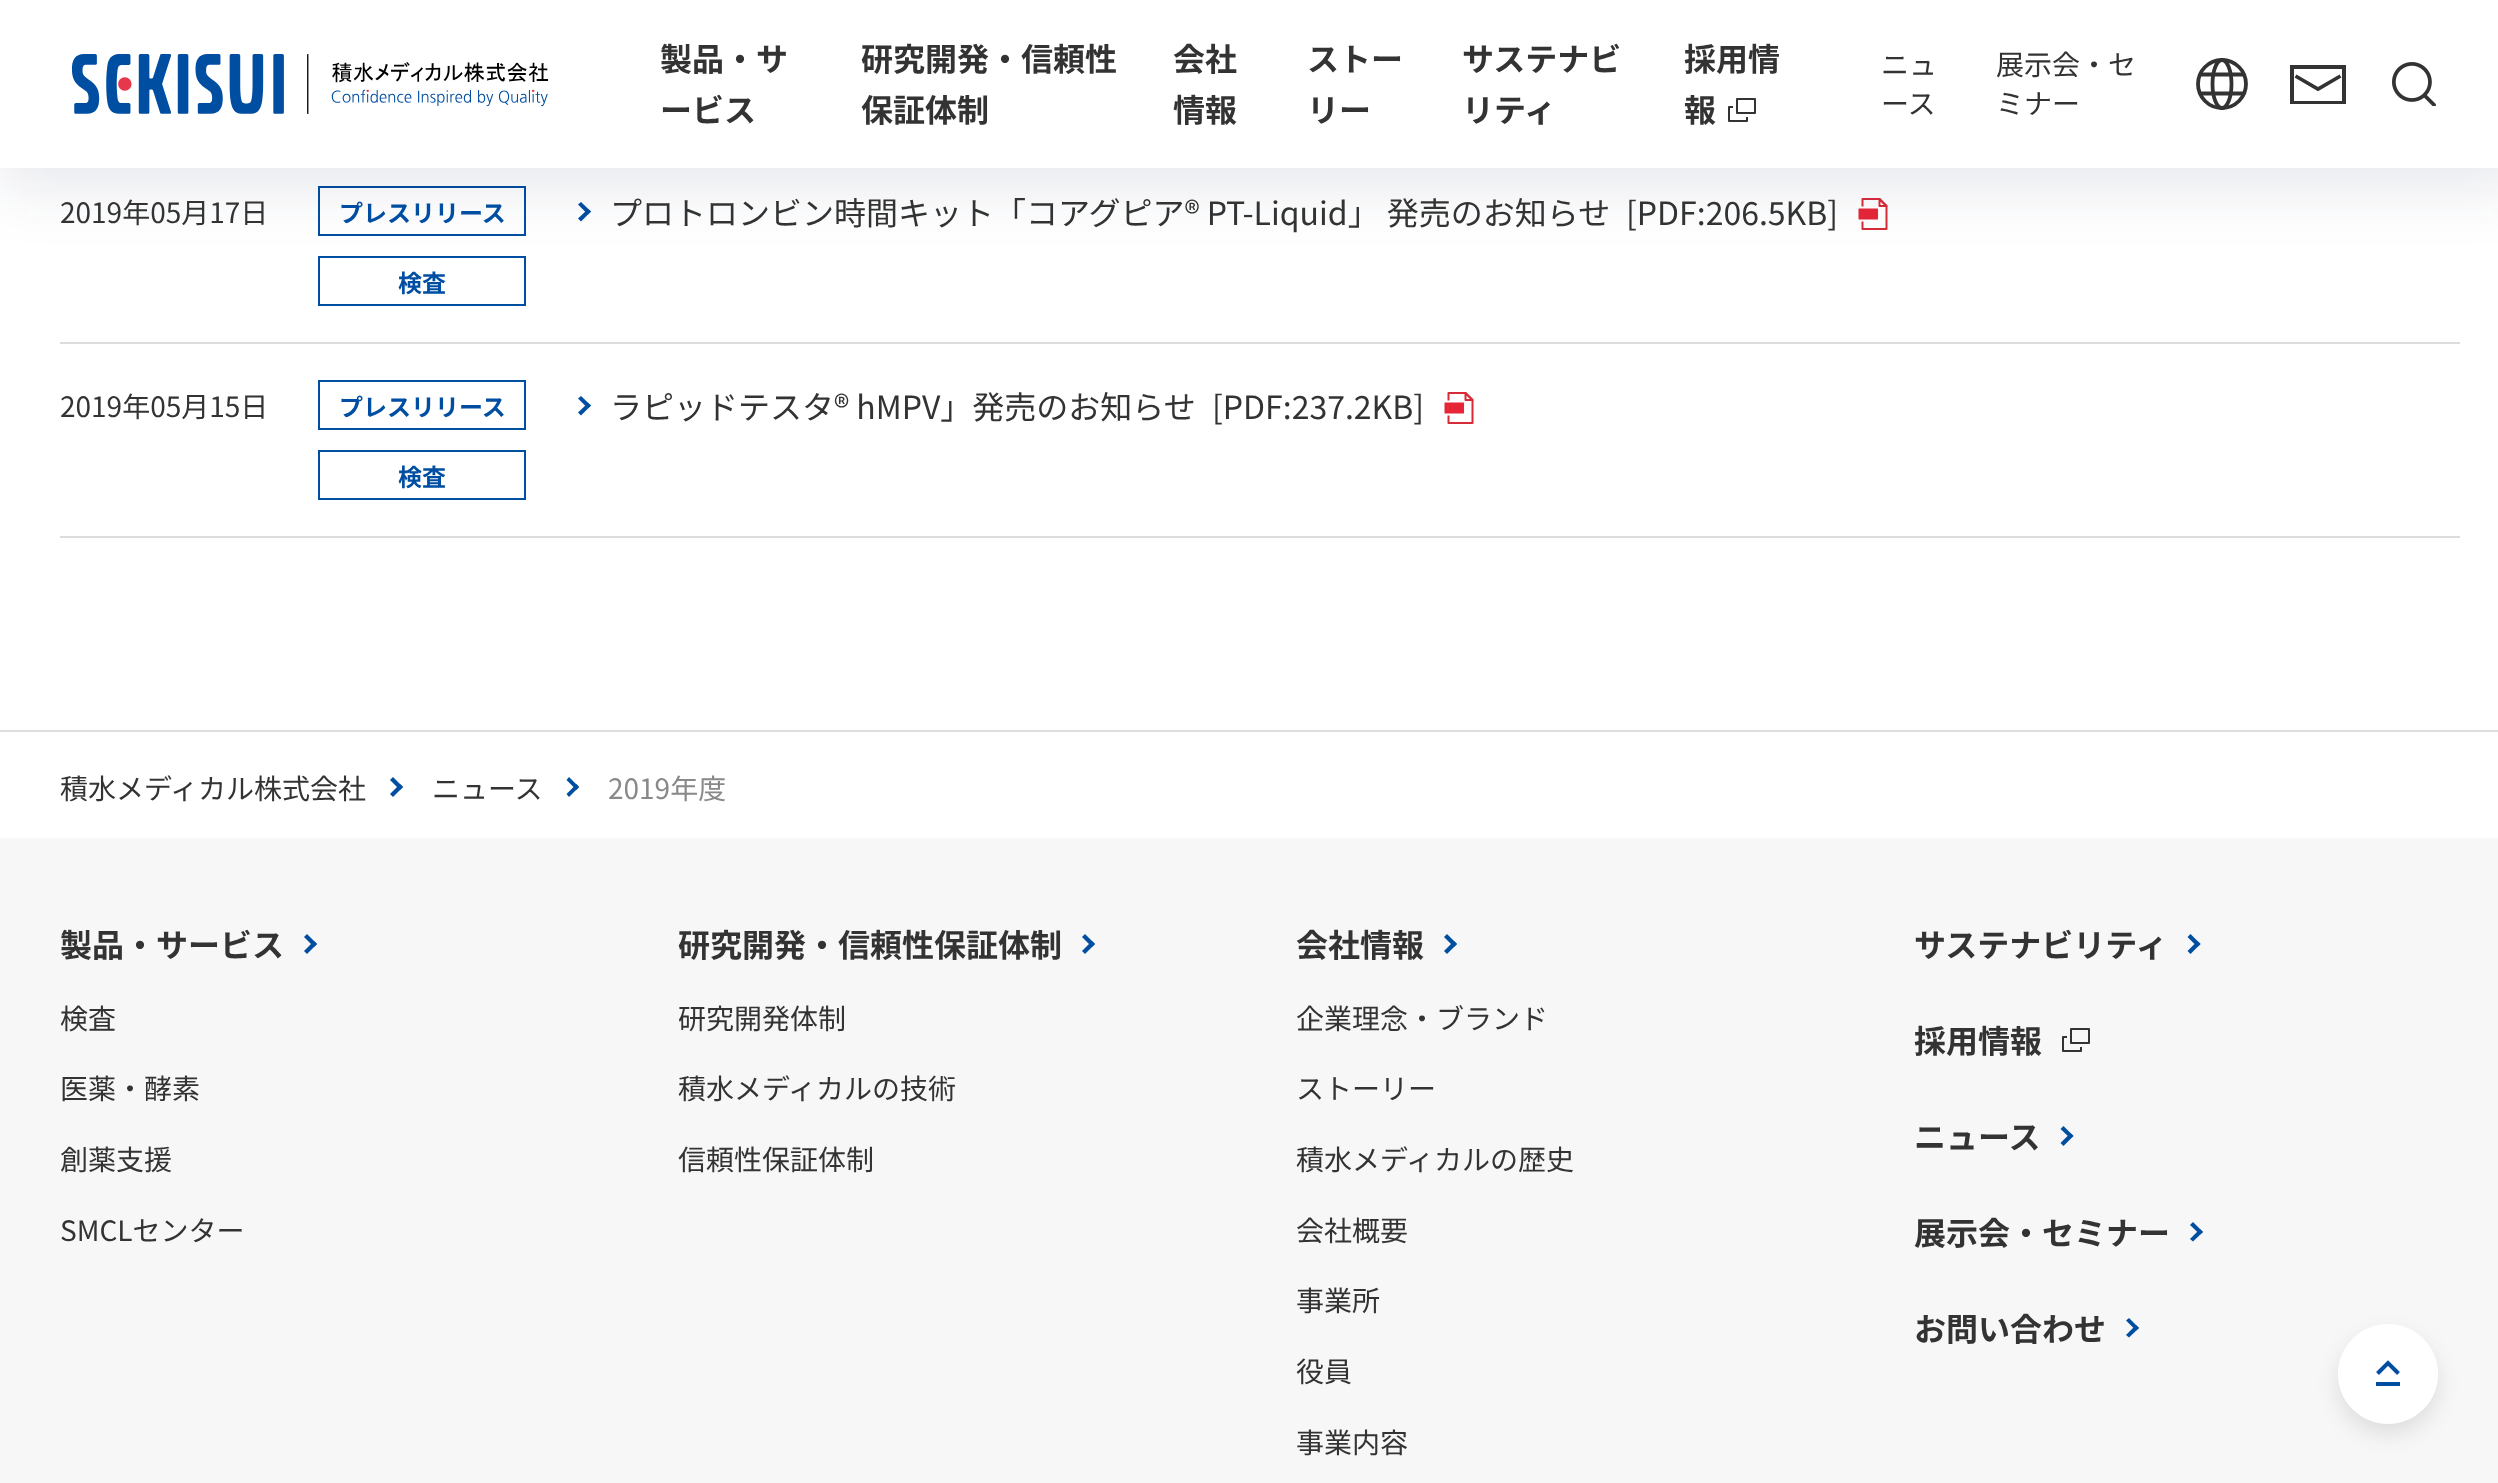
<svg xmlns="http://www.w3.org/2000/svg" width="2498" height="1483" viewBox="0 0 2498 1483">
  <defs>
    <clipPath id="clip1"><rect x="2290" y="64" width="56" height="40"/></clipPath>
  </defs>
  <rect width="100%" height="100%" fill="rgb(255,255,255)"/>
  <rect x="319" y="187" width="206" height="48" fill="none" stroke="rgb(0,78,162)" stroke-width="2"/>
  <rect x="319" y="257" width="206" height="48" fill="none" stroke="rgb(0,78,162)" stroke-width="2"/>
  <path d="M581 202L591 211.5L588 214.5L578 204.5Z" fill="rgb(0,78,162)"/>
  <path d="M588 209L591 211.5L581 221.5L578 218.5Z" fill="rgb(0,78,162)"/>
  <image x="1858" y="198" width="30" height="32" href="pic4.png"/>
  <rect x="0" y="20" width="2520" height="168" fill="rgba(16,32,76,0.1)" filter="blur(30px)"/>
  <rect x="0" y="0" width="2498" height="168" fill="rgb(255,255,255)"/>
  <image x="71" y="54" width="478" height="60" href="pic1.png"/>
  <g font-family="Noto Sans JP" font-size="32" font-weight="bold" fill="rgb(51,51,51)">
    <text>
      <tspan x="660" y="71">製品・サ</tspan>
      <tspan x="660" y="122">ービス</tspan>
    </text>
    <text>
      <tspan x="861" y="71">研究開発・信頼性</tspan>
      <tspan x="861" y="122">保証体制</tspan>
    </text>
    <text>
      <tspan x="1173" y="71">会社</tspan>
      <tspan x="1173" y="122">情報</tspan>
    </text>
    <text>
      <tspan x="1307" y="71">ストー</tspan>
      <tspan x="1307" y="122">リー</tspan>
    </text>
    <text>
      <tspan x="1462" y="71">サステナビ</tspan>
      <tspan x="1462" y="122">リティ</tspan>
    </text>
    <text>
      <tspan x="1684" y="71">採用情</tspan>
      <tspan x="1684" y="122">報</tspan>
    </text>
  </g>
  <image x="1728" y="98" width="28" height="24" href="pic2.png"/>
  <g font-family="Noto Sans JP" font-size="28" fill="rgb(51,51,51)">
    <text>
      <tspan x="1881" y="75">ニュ</tspan>
      <tspan x="1881" y="114">ース</tspan>
    </text>
    <text>
      <tspan x="1996" y="75">展示会・セ</tspan>
      <tspan x="1996" y="114">ミナー</tspan>
    </text>
  </g>
  <circle cx="2222" cy="84" r="24" fill="none" stroke="rgb(51,51,51)" stroke-width="3.8"/>
  <ellipse cx="2222" cy="84" rx="9.5" ry="24" fill="none" stroke="rgb(51,51,51)" stroke-width="3.8"/>
  <path d="M2200 74.5H2244M2200 93.5H2244" fill="none" stroke="rgb(51,51,51)" stroke-width="3.8"/>
  <path d="M2340.5 76L2318 89L2295.5 76" fill="none" stroke="rgb(51,51,51)" stroke-width="3.7"/>
  <g clip-path="url(#clip1)">
    <path d="M2342 69V101H2294V69H2342M2346 65H2290V105H2346Z" fill="rgb(51,51,51)"/>
  </g>
  <image x="2392" y="62" width="44" height="44" href="pic3.png"/>
  <rect x="60" y="342" width="2400" height="2" fill="rgb(221,221,221)"/>
  <text x="60" y="223" font-family="Noto Sans JP" font-size="28" fill="rgb(51,51,51)">2019年05月17日</text>
  <g font-family="Noto Sans JP" font-size="24" font-weight="bold" fill="rgb(0,78,162)">
    <text x="339" y="222">プレスリリース</text>
    <text x="398" y="292">検査</text>
  </g>
  <g font-family="Noto Sans JP" font-size="32" fill="rgb(51,51,51)">
    <text x="610" y="225">プロトロンビン時間キット「コアグピア® PT-Liquid」 発売のお知らせ</text>
    <text x="1626" y="225">[PDF:206.5KB]</text>
  </g>
  <rect x="60" y="536" width="2400" height="2" fill="rgb(221,221,221)"/>
  <text x="60" y="417" font-family="Noto Sans JP" font-size="28" fill="rgb(51,51,51)">2019年05月15日</text>
  <rect x="319" y="381" width="206" height="48" fill="none" stroke="rgb(0,78,162)" stroke-width="2"/>
  <text x="339" y="416" font-family="Noto Sans JP" font-size="24" font-weight="bold" fill="rgb(0,78,162)">プレスリリース</text>
  <rect x="319" y="451" width="206" height="48" fill="none" stroke="rgb(0,78,162)" stroke-width="2"/>
  <text x="398" y="486" font-family="Noto Sans JP" font-size="24" font-weight="bold" fill="rgb(0,78,162)">検査</text>
  <path d="M581 396L591 405.5L588 408.5L578 398.5Z" fill="rgb(0,78,162)"/>
  <path d="M588 403L591 405.5L581 415.5L578 412.5Z" fill="rgb(0,78,162)"/>
  <g font-family="Noto Sans JP" font-size="32" fill="rgb(51,51,51)">
    <text x="610" y="419">ラピッドテスタ® hMPV」発売のお知らせ</text>
    <text x="1212" y="419">[PDF:237.2KB]</text>
  </g>
  <image x="1444" y="392" width="30" height="32" href="pic4.png"/>
  <rect x="0" y="730" width="2498" height="2" fill="rgb(221,221,221)"/>
  <text x="60" y="799" font-family="Noto Sans JP" font-size="28" fill="rgb(51,51,51)">積水メディカル株式会社</text>
  <path d="M393 777L403 787L400 790L390 780Z" fill="rgb(0,78,162)"/>
  <path d="M400 784L403 787L393 797L390 794Z" fill="rgb(0,78,162)"/>
  <text x="432" y="799" font-family="Noto Sans JP" font-size="28" fill="rgb(51,51,51)">ニュース</text>
  <path d="M569 777L579 787L576.5 790L566.5 780Z" fill="rgb(0,78,162)"/>
  <path d="M576.5 784L579 787L569 797L566.5 794Z" fill="rgb(0,78,162)"/>
  <text x="608" y="799" font-family="Noto Sans JP" font-size="28" fill="rgb(137,137,137)">2019年度</text>
  <rect x="0" y="838" width="2498" height="645" fill="rgb(247,247,247)"/>
  <text x="60" y="957" font-family="Noto Sans JP" font-size="32" font-weight="bold" fill="rgb(51,51,51)">製品・サービス</text>
  <path d="M307 934L317 944L314 947L304 937Z" fill="rgb(0,78,162)"/>
  <path d="M314 941L317 944L307 954L304 951Z" fill="rgb(0,78,162)"/>
  <g font-family="Noto Sans JP" font-size="28" fill="rgb(51,51,51)">
    <text x="60" y="1029">検査</text>
    <text x="60" y="1099">医薬・酵素</text>
    <text x="60" y="1170">創薬支援</text>
    <text x="60" y="1241">SMCLセンター</text>
  </g>
  <text x="678" y="957" font-family="Noto Sans JP" font-size="32" font-weight="bold" fill="rgb(51,51,51)">研究開発・信頼性保証体制</text>
  <path d="M1085 934L1095 944L1092 947L1082 937Z" fill="rgb(0,78,162)"/>
  <path d="M1092 941L1095 944L1085 954L1082 951Z" fill="rgb(0,78,162)"/>
  <g font-family="Noto Sans JP" font-size="28" fill="rgb(51,51,51)">
    <text x="678" y="1029">研究開発体制</text>
    <text x="678" y="1099">積水メディカルの技術</text>
    <text x="678" y="1170">信頼性保証体制</text>
  </g>
  <text x="1296" y="957" font-family="Noto Sans JP" font-size="32" font-weight="bold" fill="rgb(51,51,51)">会社情報</text>
  <path d="M1447 934L1457 944L1454 947L1444 937Z" fill="rgb(0,78,162)"/>
  <path d="M1454 941L1457 944L1447 954L1444 951Z" fill="rgb(0,78,162)"/>
  <g font-family="Noto Sans JP" font-size="28" fill="rgb(51,51,51)">
    <text x="1296" y="1029">企業理念・ブランド</text>
    <text x="1296" y="1099">ストーリー</text>
    <text x="1296" y="1170">積水メディカルの歴史</text>
    <text x="1296" y="1241">会社概要</text>
    <text x="1296" y="1311">事業所</text>
    <text x="1296" y="1382">役員</text>
    <text x="1296" y="1453">事業内容</text>
  </g>
  <text x="1914" y="957" font-family="Noto Sans JP" font-size="32" font-weight="bold" fill="rgb(51,51,51)">サステナビリティ</text>
  <path d="M2190.5 934L2200.5 944L2197.5 947L2187.5 937Z" fill="rgb(0,78,162)"/>
  <path d="M2197.5 941L2200.5 944L2190.5 954L2187.5 951Z" fill="rgb(0,78,162)"/>
  <text x="1914" y="1053" font-family="Noto Sans JP" font-size="32" font-weight="bold" fill="rgb(51,51,51)">採用情報</text>
  <image x="2062" y="1028" width="28" height="24" href="pic5.png"/>
  <text x="1914" y="1149" font-family="Noto Sans JP" font-size="32" font-weight="bold" fill="rgb(51,51,51)">ニュース</text>
  <path d="M2063.5 1126L2073.5 1136L2070.5 1138.5L2060.5 1129Z" fill="rgb(0,78,162)"/>
  <path d="M2070.5 1133L2073.5 1136L2063.5 1146L2060.5 1143Z" fill="rgb(0,78,162)"/>
  <text x="1914" y="1245" font-family="Noto Sans JP" font-size="32" font-weight="bold" fill="rgb(51,51,51)">展示会・セミナー</text>
  <path d="M2193 1222L2203 1232L2200 1234.5L2190 1225Z" fill="rgb(0,78,162)"/>
  <path d="M2200 1229L2203 1232L2193 1241.5L2190 1239Z" fill="rgb(0,78,162)"/>
  <text x="1914" y="1341" font-family="Noto Sans JP" font-size="32" font-weight="bold" fill="rgb(51,51,51)">お問い合わせ</text>
  <path d="M2129 1318L2139 1328L2136 1330.5L2126 1320.5Z" fill="rgb(0,78,162)"/>
  <path d="M2136 1325L2139 1328L2129 1337.5L2126 1335Z" fill="rgb(0,78,162)"/>
  <rect x="2338" y="1334" width="100" height="100" rx="50" fill="rgba(0,0,0,0.1)" filter="blur(11px)"/>
  <circle cx="2388" cy="1374" r="49" fill="rgb(255,255,255)" stroke="rgb(255,255,255)" stroke-width="2"/>
  <path d="M2377.5 1373.5L2388 1363L2398.5 1373.5" fill="none" stroke="rgb(0,78,162)" stroke-width="4"/>
  <rect x="2376" y="1382" width="24" height="4" fill="rgb(0,78,162)"/>
</svg>
